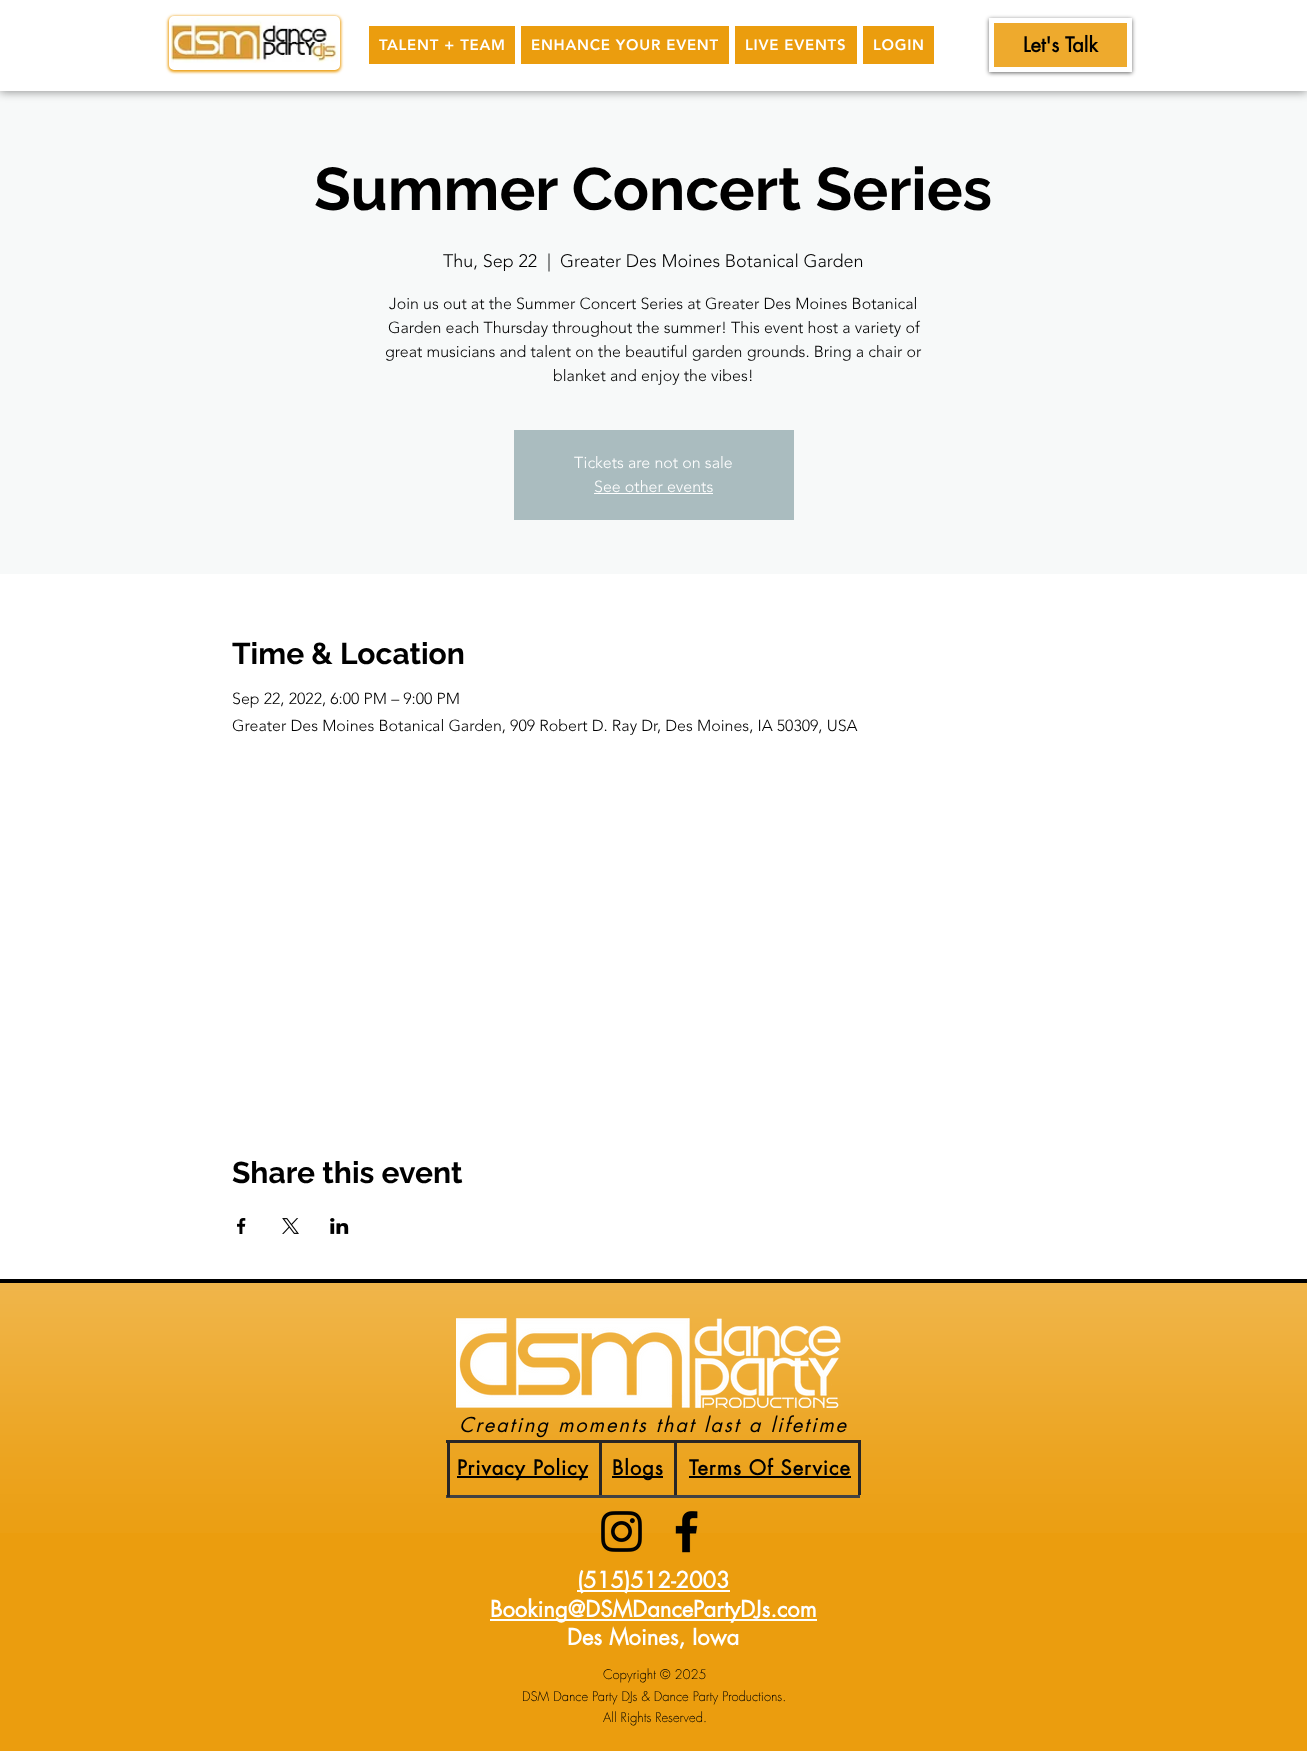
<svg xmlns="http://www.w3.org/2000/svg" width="1307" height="1751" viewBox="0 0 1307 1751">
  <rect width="100%" height="100%" fill="rgb(255,255,255)"/>
  <rect x="0" y="91" width="1307" height="483" fill="rgb(247,249,249)"/>
  <rect x="0" y="1" width="1307" height="91" fill="rgba(0,0,0,0.42)" filter="blur(5px)"/>
  <rect x="0" y="0" width="1307" height="91" fill="rgb(255,255,255)"/>
  <rect x="168" y="16" width="173" height="56" rx="6" fill="rgb(235,157,14)" filter="blur(1.5px)"/>
  <rect x="170" y="17" width="169" height="52" rx="4" fill="rgb(255,255,255)" stroke="rgb(255,255,255)" stroke-width="2"/>
  <image x="171" y="18" width="167" height="45" href="pic1.png"/>
  <rect x="369" y="26" width="146" height="38" fill="rgb(235,157,14)"/>
  <text x="379" y="50" font-family="'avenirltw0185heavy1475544'" font-size="15" font-weight="900" letter-spacing="0.75" fill="rgb(255,255,255)">TALENT + TEAM</text>
  <rect x="521" y="26" width="208" height="38" fill="rgb(235,157,14)"/>
  <text x="531" y="50" font-family="'avenirltw0185heavy1475544'" font-size="15" font-weight="900" letter-spacing="0.75" fill="rgb(255,255,255)">ENHANCE YOUR EVENT</text>
  <rect x="735" y="26" width="122" height="38" fill="rgb(235,157,14)"/>
  <text x="745" y="50" font-family="'avenirltw0185heavy1475544'" font-size="15" font-weight="900" letter-spacing="0.75" fill="rgb(255,255,255)">LIVE EVENTS</text>
  <rect x="863" y="26" width="71" height="38" fill="rgb(235,157,14)"/>
  <text x="873" y="50" font-family="'avenirltw0185heavy1475544'" font-size="15" font-weight="900" letter-spacing="0.75" fill="rgb(255,255,255)">LOGIN</text>
  <rect x="989" y="19" width="143" height="54" fill="rgba(0,0,0,0.6)" filter="blur(2px)"/>
  <rect x="991.5" y="20.5" width="138" height="49" fill="rgb(238,170,45)" stroke="rgb(255,255,255)" stroke-width="5"/>
  <text x="1023" y="52" font-family="futura" font-size="20" font-weight="bold" fill="rgb(0,0,0)">Let's Talk</text>
  <text x="314" y="210" font-family="Raleway" font-size="60" font-weight="bold" fill="rgb(0,0,0)">Summer Concert Series</text>
  <g font-family="'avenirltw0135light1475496'" font-size="18" font-weight="300" fill="rgb(0,0,0)">
    <text x="443" y="267">Thu, Sep 22</text>
    <text x="547" y="267">|</text>
    <text x="560" y="267">Greater Des Moines Botanical Garden</text>
  </g>
  <g font-family="'avenirltw0135light1475496'" font-size="16" font-weight="300" fill="rgb(0,0,0)">
    <text x="389" y="309">Join us out at the Summer Concert Series at Greater Des Moines Botanical</text>
    <text x="388" y="333">Garden each Thursday throughout the summer! This event host a variety of</text>
    <text x="385" y="357">great musicians and talent on the beautiful garden grounds. Bring a chair or</text>
    <text x="553" y="381">blanket and enjoy the vibes!</text>
  </g>
  <rect x="514" y="430" width="280" height="90" fill="rgb(170,188,191)"/>
  <g font-family="'avenirltw0135light1475496'" font-size="16" font-weight="300" fill="rgb(255,255,255)">
    <text x="574" y="468">Tickets are not on sale</text>
    <text x="594" y="492">See other events</text>
  </g>
  <rect x="594" y="493" width="119" height="1" fill="rgb(255,255,255)"/>
  <text x="232" y="664" font-family="Raleway" font-size="30" font-weight="bold" fill="rgb(0,0,0)">Time &amp; Location</text>
  <g font-family="'avenirltw0135light1475496'" font-size="16" font-weight="300" fill="rgb(0,0,0)">
    <text>
      <tspan x="232" y="704">Sep 22, 2022, 6:00 PM – 9:00 PM</tspan>
      <tspan x="232" y="731">Greater Des Moines Botanical Garden, 909 Robert D. Ray Dr, Des Moines, IA 50309, USA</tspan>
    </text>
  </g>
  <text x="232" y="1183" font-family="Raleway" font-size="30" font-weight="bold" fill="rgb(0,0,0)">Share this event</text>
  <image x="237" y="1218" width="9" height="16" href="pic2.png"/>
  <image x="282" y="1218" width="17" height="16" href="pic3.png"/>
  <image x="330" y="1218" width="19" height="16" href="pic4.png"/>
  <rect x="0" y="1283" width="1307" height="468" fill="rgb(235,157,14)"/>
  <image x="0" y="1283" width="1307" height="250" href="pic5.png"/>
  <rect x="0" y="1279" width="1307" height="4" fill="rgb(0,0,0)"/>
  <image x="456" y="1318" width="385" height="90" href="pic6.png"/>
  <text x="459" y="1432" font-family="futura" font-size="20" font-style="italic" letter-spacing="2" fill="rgb(0,0,0)">Creating moments that last a lifetime</text>
  <rect x="446" y="1440" width="414" height="3" fill="rgb(40,38,38)"/>
  <rect x="674" y="1442" width="3" height="55" fill="rgb(40,38,38)"/>
  <rect x="446" y="1495" width="414" height="3" fill="rgb(66,66,66)"/>
  <rect x="447" y="1442" width="3" height="55" fill="rgb(40,38,38)"/>
  <rect x="457" y="1476" width="131" height="2" fill="rgb(0,0,0)"/>
  <text x="457" y="1475" font-family="futura" font-size="20" font-weight="bold" letter-spacing="1" fill="rgb(0,0,0)">Privacy Policy</text>
  <rect x="599" y="1440" width="3" height="55" fill="rgb(40,38,38)"/>
  <rect x="612" y="1476" width="51" height="2" fill="rgb(0,0,0)"/>
  <g font-family="futura" font-size="20" font-weight="bold" letter-spacing="1" fill="rgb(0,0,0)">
    <text x="612" y="1475">Blogs</text>
    <text x="689" y="1475">Terms Of Service</text>
  </g>
  <rect x="689" y="1476" width="162" height="2" fill="rgb(0,0,0)"/>
  <rect x="858" y="1440" width="3" height="55" fill="rgb(40,38,38)"/>
  <image x="601" y="1511" width="41" height="41" href="pic7.png"/>
  <image x="675" y="1511" width="23" height="42" href="pic8.png"/>
  <rect x="577" y="1590" width="153" height="2" fill="rgb(255,255,255)"/>
  <text x="577" y="1588" font-family="futura" font-size="22" font-weight="bold" fill="rgb(255,255,255)">(515)512-2003</text>
  <rect x="490" y="1619" width="327" height="2" fill="rgb(255,255,255)"/>
  <g font-family="futura" font-size="22" font-weight="bold" fill="rgb(255,255,255)">
    <text x="490" y="1617">Booking@DSMDancePartyDJs.com</text>
    <text x="567" y="1645">Des Moines, Iowa</text>
  </g>
  <g font-family="futura" font-size="13" font-weight="300" fill="rgb(0,0,0)">
    <text x="603" y="1679">Copyright © 2025</text>
    <text x="522" y="1701">DSM Dance Party DJs &amp; Dance Party Productions.</text>
    <text x="603" y="1722">All Rights Reserved.</text>
  </g>
</svg>
